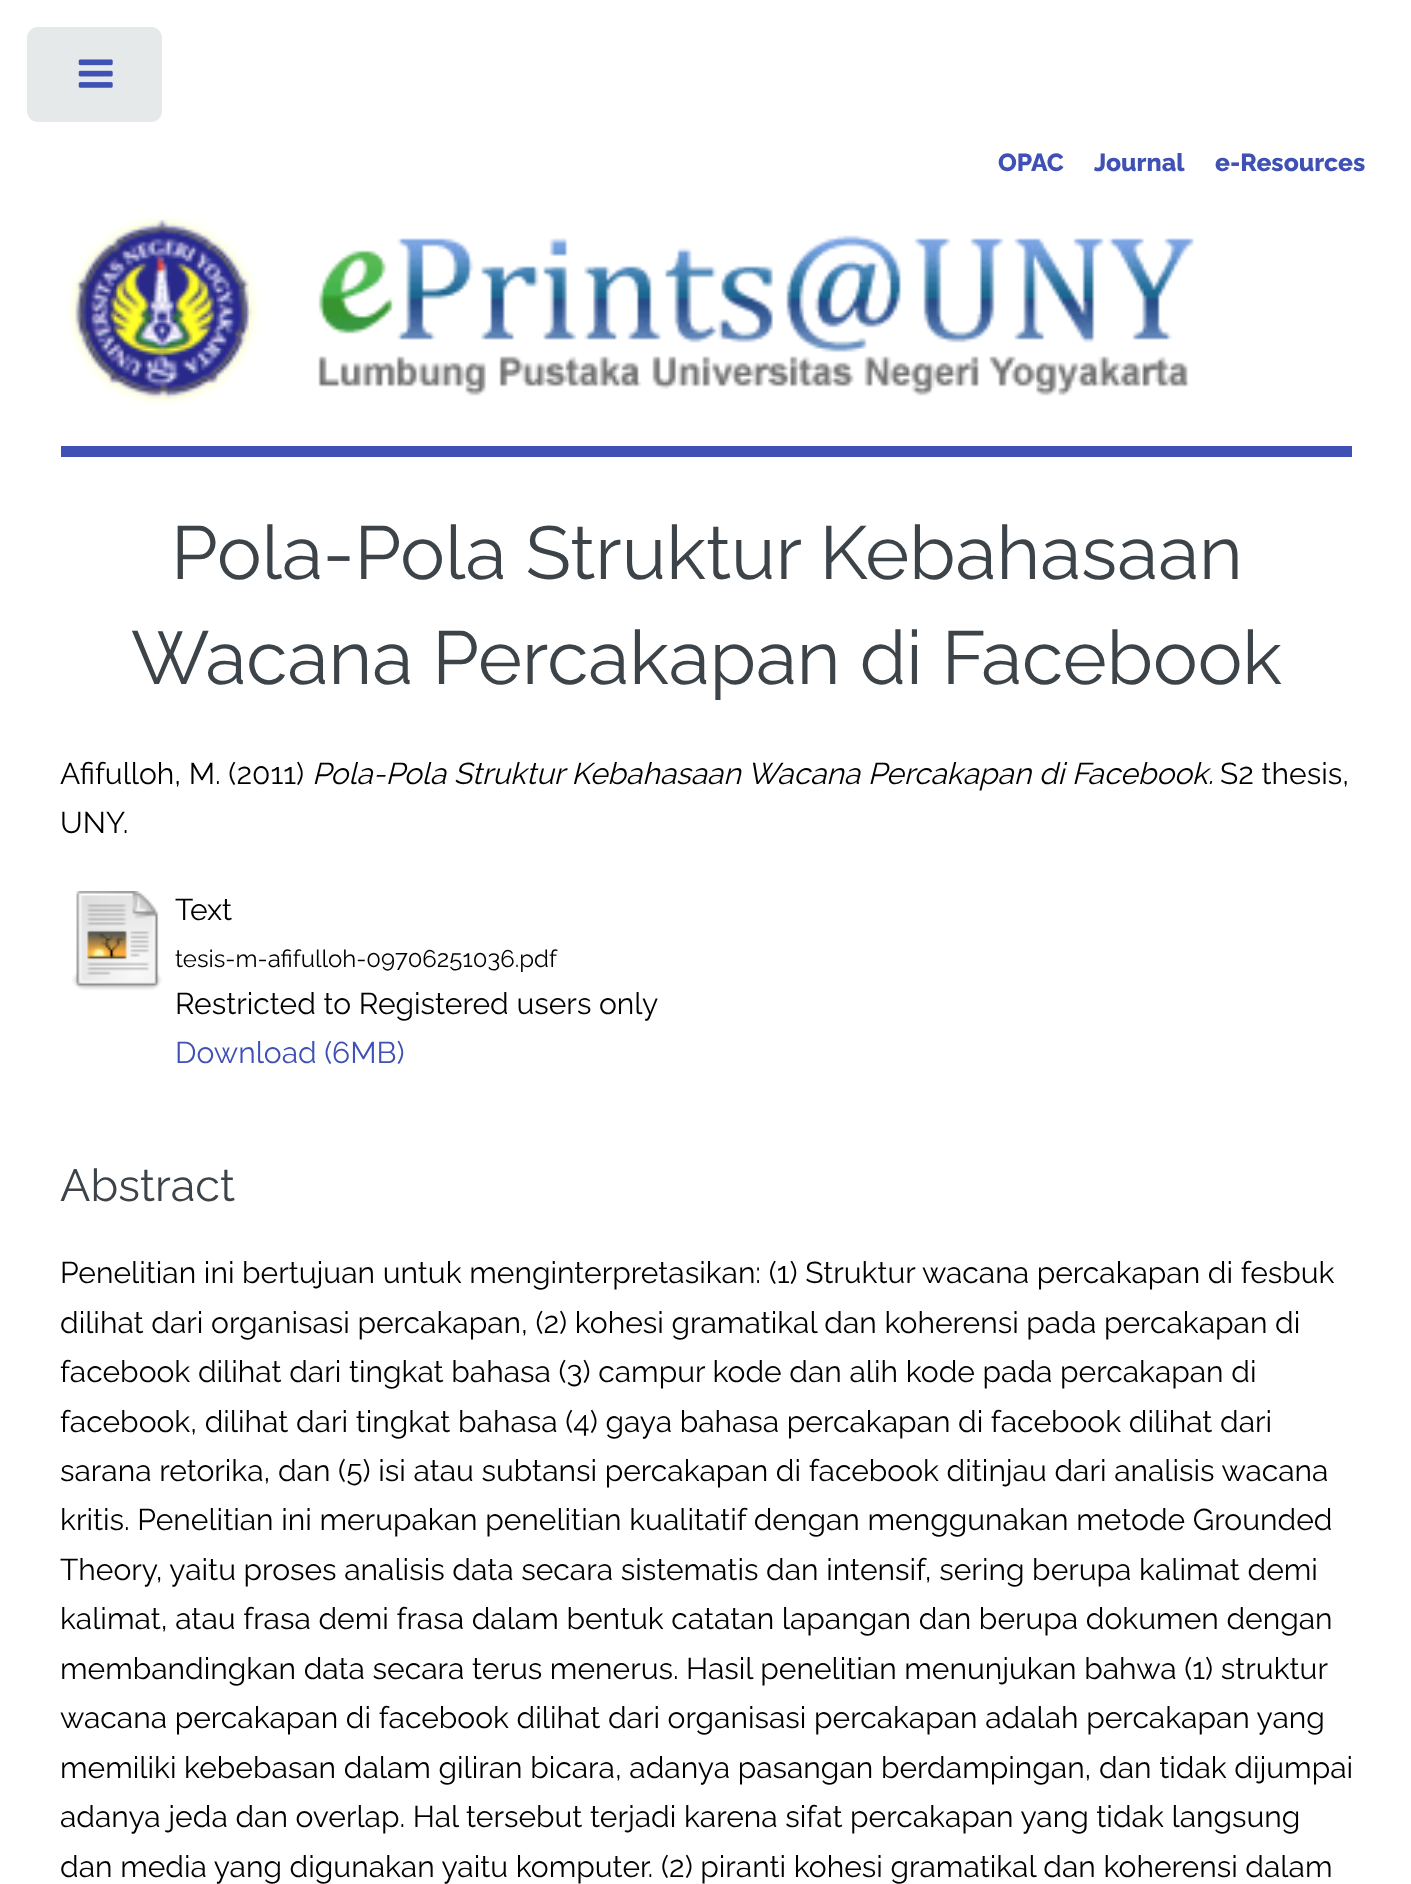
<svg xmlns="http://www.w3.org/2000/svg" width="1411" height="1884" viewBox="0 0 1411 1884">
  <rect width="100%" height="100%" fill="rgb(255,255,255)"/>
  <rect x="27" y="27" width="135" height="95" rx="11" fill="rgb(230,233,233)"/>
  <image x="78" y="59" width="35" height="29" href="pic1.png"/>
  <rect x="61" y="446" width="1291" height="11" fill="rgb(63,81,181)"/>
  <g font-family="Raleway" font-size="24.75" font-weight="800" fill="rgb(63,81,181)">
    <text x="998" y="171">OPAC</text>
    <text x="1094" y="171">Journal</text>
    <text x="1215" y="171">e-Resources</text>
  </g>
  <image x="67" y="215" width="1127" height="190" href="pic2.png"/>
  <g font-family="Raleway" font-size="75" fill="rgb(61,68,73)">
    <text x="171" y="579">Pola-Pola Struktur Kebahasaan</text>
    <text x="131" y="684">Wacana Percakapan di Facebook</text>
  </g>
  <text x="60" y="784" font-family="Raleway" font-size="30" fill="rgb(0,0,0)">Afifulloh, M. (2011)</text>
  <text x="312" y="784" font-family="Raleway" font-size="30" font-style="italic" fill="rgb(0,0,0)">Pola-Pola Struktur Kebahasaan Wacana Percakapan di Facebook.</text>
  <g font-family="Raleway" font-size="30" fill="rgb(0,0,0)">
    <text x="1220" y="784">S2 thesis,</text>
    <text x="60" y="833">UNY.</text>
  </g>
  <image x="72" y="891" width="90" height="99" href="pic3.png"/>
  <text x="175" y="920" font-family="Raleway" font-size="30" fill="rgb(0,0,0)">Text</text>
  <text x="175" y="967" font-family="Raleway" font-size="24" fill="rgb(0,0,0)">tesis-m-afifulloh-09706251036.pdf</text>
  <text x="175" y="1014" font-family="Raleway" font-size="30" fill="rgb(0,0,0)">Restricted to Registered users only</text>
  <text x="175" y="1063" font-family="Raleway" font-size="30" fill="rgb(63,81,181)">Download (6MB)</text>
  <text x="60" y="1201" font-family="Raleway" font-size="45" fill="rgb(61,68,73)">Abstract</text>
  <g font-family="Raleway" font-size="30" fill="rgb(0,0,0)">
    <text>
      <tspan x="60" y="1283">Penelitian ini bertujuan untuk menginterpretasikan: (1) Struktur wacana percakapan di fesbuk</tspan>
      <tspan x="60" y="1333">dilihat dari organisasi percakapan, (2) kohesi gramatikal dan koherensi pada percakapan di</tspan>
      <tspan x="60" y="1382">facebook dilihat dari tingkat bahasa (3) campur kode dan alih kode pada percakapan di</tspan>
      <tspan x="60" y="1432">facebook, dilihat dari tingkat bahasa (4) gaya bahasa percakapan di facebook dilihat dari</tspan>
      <tspan x="60" y="1481">sarana retorika, dan (5) isi atau subtansi percakapan di facebook ditinjau dari analisis wacana</tspan>
      <tspan x="60" y="1530">kritis. Penelitian ini merupakan penelitian kualitatif dengan menggunakan metode Grounded</tspan>
      <tspan x="60" y="1580">Theory, yaitu proses analisis data secara sistematis dan intensif, sering berupa kalimat demi</tspan>
      <tspan x="60" y="1629">kalimat, atau frasa demi frasa dalam bentuk catatan lapangan dan berupa dokumen dengan</tspan>
      <tspan x="60" y="1679">membandingkan data secara terus menerus.</tspan>
    </text>
    <text x="686" y="1679">Hasil penelitian menunjukan bahwa (1) struktur</text>
    <text>
      <tspan x="60" y="1728">wacana percakapan di facebook dilihat dari organisasi percakapan adalah percakapan yang</tspan>
      <tspan x="60" y="1778">memiliki kebebasan dalam giliran bicara, adanya pasangan berdampingan, dan tidak dijumpai</tspan>
      <tspan x="60" y="1827">adanya jeda dan overlap. Hal tersebut terjadi karena sifat percakapan yang tidak langsung</tspan>
      <tspan x="60" y="1877">dan media yang digunakan yaitu komputer. (2) piranti kohesi gramatikal dan koherensi dalam</tspan>
    </text>
  </g>
</svg>
